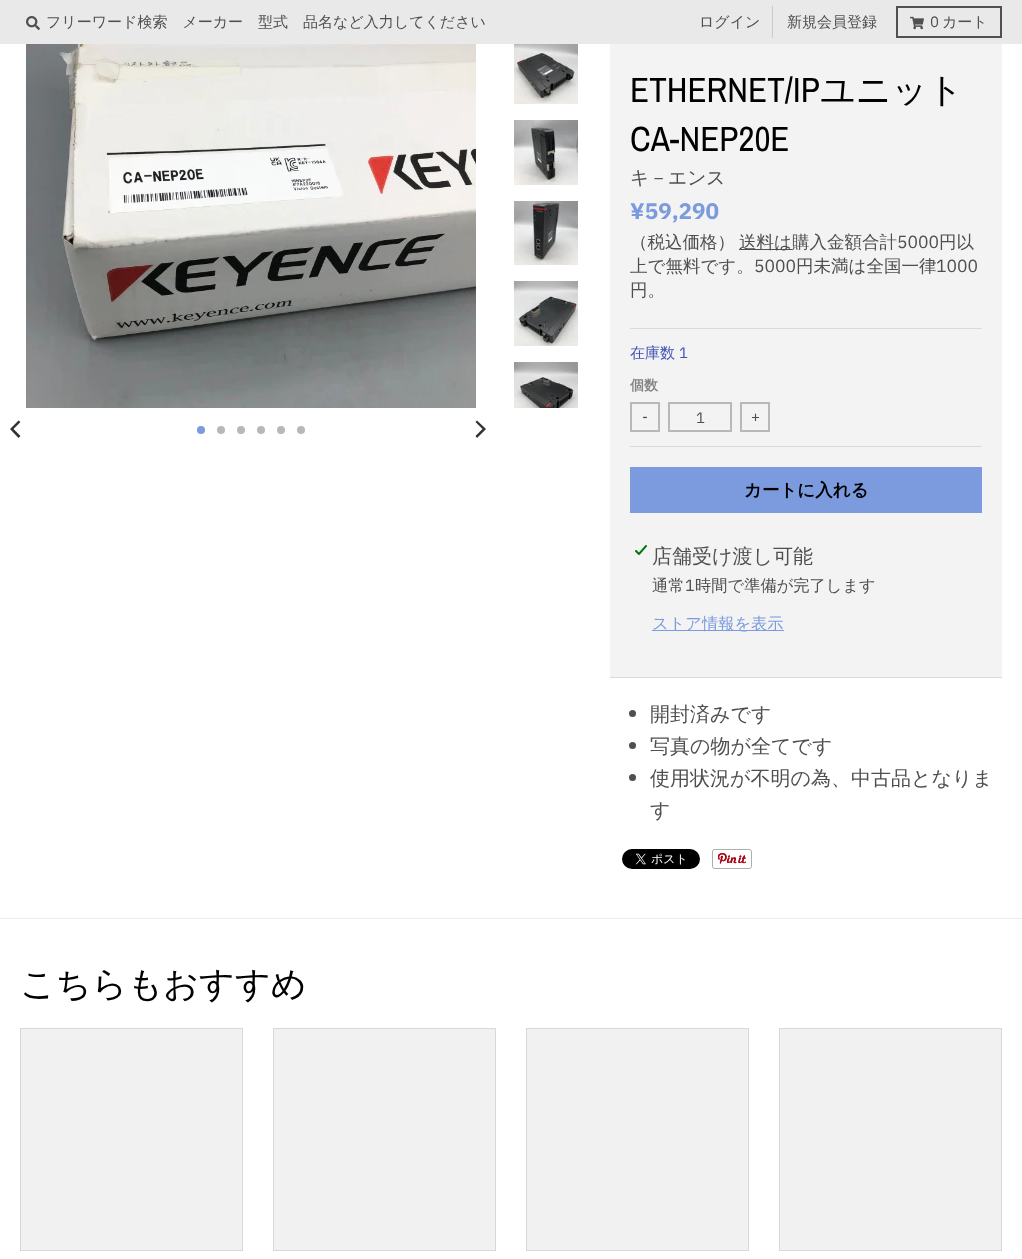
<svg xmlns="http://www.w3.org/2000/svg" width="1022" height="1259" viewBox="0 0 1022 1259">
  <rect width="100%" height="100%" fill="rgb(255,255,255)"/>
  <rect x="0" y="0" width="1022" height="44" fill="rgb(233,233,233)"/>
  <image x="26" y="16" width="14" height="14" href="pic1.png"/>
  <text x="46" y="27" font-family="WenQuanYi Zen Hei" font-size="15" font-weight="500" fill="rgb(79,79,79)">フリーワード検索　メーカー　型式　品名など入力してください</text>
  <rect x="772" y="6" width="1" height="32" fill="rgb(202,202,202)"/>
  <g font-family="WenQuanYi Zen Hei" font-size="15" font-weight="500" fill="rgb(79,79,79)">
    <text x="699" y="27">ログイン</text>
    <text x="787" y="27">新規会員登録</text>
  </g>
  <rect x="897" y="7" width="104" height="30" fill="none" stroke="rgb(80,80,80)" stroke-width="2"/>
  <image x="910" y="16" width="14" height="14" href="pic2.png"/>
  <text x="930" y="27" font-family="IBM Plex Sans" font-size="15" fill="rgb(79,79,79)">0</text>
  <text x="942" y="27" font-family="WenQuanYi Zen Hei" font-size="15" font-weight="500" fill="rgb(79,79,79)">カート</text>
  <rect x="0" y="918" width="1022" height="1" fill="rgb(237,237,237)"/>
  <image x="26" y="44" width="450" height="364" href="pic3.png"/>
  <path d="M10 429L18.5 438L20.5 436L13.5 429L20.5 422L18.5 420.5Z" fill="rgb(51,51,51)"/>
  <circle cx="201" cy="430" r="4" fill="rgb(123,155,222)"/>
  <circle cx="221" cy="430" r="4" fill="rgb(184,184,184)"/>
  <circle cx="241" cy="430" r="4" fill="rgb(184,184,184)"/>
  <circle cx="261" cy="430" r="4" fill="rgb(184,184,184)"/>
  <circle cx="281" cy="430" r="4" fill="rgb(184,184,184)"/>
  <circle cx="301" cy="430" r="4" fill="rgb(184,184,184)"/>
  <path d="M486 429L477 420.5L475.5 422L482.5 429L475.5 436L477 438Z" fill="rgb(51,51,51)"/>
  <image x="514" y="44" width="64" height="60" href="pic4.png"/>
  <image x="514" y="120" width="64" height="65" href="pic5.png"/>
  <image x="514" y="201" width="64" height="64" href="pic6.png"/>
  <image x="514" y="281" width="64" height="65" href="pic7.png"/>
  <image x="514" y="362" width="64" height="46" href="pic8.png"/>
  <rect x="610" y="44" width="392" height="633" fill="rgb(243,243,243)"/>
  <rect x="610" y="677" width="392" height="1" fill="rgb(218,218,218)"/>
  <text x="630" y="102" font-family="Archivo Narrow" font-size="35" fill="rgb(0,0,0)">ETHERNET/IP</text>
  <text x="820" y="102" font-family="WenQuanYi Zen Hei" font-size="35" font-weight="500" fill="rgb(0,0,0)">ユニット</text>
  <text x="630" y="151" font-family="Archivo Narrow" font-size="35" fill="rgb(0,0,0)">CA-NEP20E</text>
  <text x="630" y="184" font-family="WenQuanYi Zen Hei" font-size="18.75" font-weight="500" fill="rgb(79,79,79)">キ－エンス</text>
  <rect x="630" y="328" width="352" height="1" fill="rgb(218,218,218)"/>
  <text x="630" y="219" font-family="IBM Plex Sans" font-size="22.5" font-weight="bold" fill="rgb(123,155,222)">¥59,290</text>
  <text x="630" y="248" font-family="WenQuanYi Zen Hei" font-size="17.5" font-weight="500" fill="rgb(79,79,79)">（税込価格）</text>
  <rect x="739" y="249" width="53" height="1" fill="rgb(79,79,79)"/>
  <text x="739" y="248" font-family="WenQuanYi Zen Hei" font-size="17.5" font-weight="500" fill="rgb(79,79,79)">送料は購入金額合計</text>
  <text x="897" y="248" font-family="IBM Plex Sans" font-size="17.5" fill="rgb(79,79,79)">5000</text>
  <g font-family="WenQuanYi Zen Hei" font-size="17.5" font-weight="500" fill="rgb(79,79,79)">
    <text x="939" y="248">円以</text>
    <text x="630" y="272">上で無料です。</text>
  </g>
  <text x="754" y="272" font-family="IBM Plex Sans" font-size="17.5" fill="rgb(79,79,79)">5000</text>
  <text x="796" y="272" font-family="WenQuanYi Zen Hei" font-size="17.5" font-weight="500" fill="rgb(79,79,79)">円未満は全国一律</text>
  <text x="936" y="272" font-family="IBM Plex Sans" font-size="17.5" fill="rgb(79,79,79)">1000</text>
  <text x="630" y="296" font-family="WenQuanYi Zen Hei" font-size="17.5" font-weight="500" fill="rgb(79,79,79)">円。</text>
  <text x="630" y="358" font-family="WenQuanYi Zen Hei" font-size="15" font-weight="500" fill="rgb(63,81,181)">在庫数</text>
  <text x="679" y="358" font-family="IBM Plex Sans" font-size="15" fill="rgb(63,81,181)">1</text>
  <rect x="630" y="446" width="352" height="1" fill="rgb(218,218,218)"/>
  <text x="630" y="390" font-family="WenQuanYi Zen Hei" font-size="14" font-weight="bold" fill="rgb(131,131,131)">個数</text>
  <rect x="631" y="403" width="28" height="28" fill="none" stroke="rgb(184,184,184)" stroke-width="2"/>
  <text x="642" y="422" font-family="IBM Plex Sans" font-size="15" fill="rgb(79,79,79)">-</text>
  <rect x="669" y="403" width="62" height="28" fill="none" stroke="rgb(184,184,184)" stroke-width="2"/>
  <text x="696" y="423" font-family="IBM Plex Sans" font-size="15" fill="rgb(79,79,79)">1</text>
  <rect x="741" y="403" width="28" height="28" fill="none" stroke="rgb(184,184,184)" stroke-width="2"/>
  <text x="751" y="422" font-family="IBM Plex Sans" font-size="15" fill="rgb(79,79,79)">+</text>
  <rect x="630" y="467" width="352" height="46" fill="rgb(123,155,222)"/>
  <text x="744" y="496" font-family="WenQuanYi Zen Hei" font-size="17.5" font-weight="bold" fill="rgb(0,0,0)">カートに入れる</text>
  <image x="635" y="545" width="12" height="10" href="pic9.png"/>
  <text x="652" y="563" font-family="WenQuanYi Zen Hei" font-size="20" font-weight="500" fill="rgb(79,79,79)">店舗受け渡し可能</text>
  <text x="652" y="591" font-family="WenQuanYi Zen Hei" font-size="16.25" font-weight="500" fill="rgb(79,79,79)">通常</text>
  <text x="685" y="591" font-family="IBM Plex Sans" font-size="16.25" fill="rgb(79,79,79)">1</text>
  <text x="695" y="591" font-family="WenQuanYi Zen Hei" font-size="16.25" font-weight="500" fill="rgb(79,79,79)">時間で準備が完了します</text>
  <rect x="652" y="630" width="132" height="1" fill="rgb(123,155,222)"/>
  <text x="652" y="629" font-family="WenQuanYi Zen Hei" font-size="16.25" font-weight="500" fill="rgb(123,155,222)">ストア情報を表示</text>
  <circle cx="632.5" cy="713.5" r="3.5" fill="rgb(79,79,79)"/>
  <text x="650" y="721" font-family="WenQuanYi Zen Hei" font-size="20" font-weight="500" fill="rgb(79,79,79)">開封済みです</text>
  <circle cx="632.5" cy="745.5" r="3.5" fill="rgb(79,79,79)"/>
  <text x="650" y="753" font-family="WenQuanYi Zen Hei" font-size="20" font-weight="500" fill="rgb(79,79,79)">写真の物が全てです</text>
  <circle cx="632.5" cy="777.5" r="3.5" fill="rgb(79,79,79)"/>
  <g font-family="WenQuanYi Zen Hei" font-size="20" font-weight="500" fill="rgb(79,79,79)">
    <text>
      <tspan x="650" y="785">使用状況が不明の為、中古品となりま</tspan>
      <tspan x="650" y="817">す</tspan>
    </text>
  </g>
  <image x="622" y="849" width="78" height="20" href="pic10.png"/>
  <image x="712" y="849" width="40" height="20" href="pic11.png"/>
  <text x="20" y="996" font-family="WenQuanYi Zen Hei" font-size="35" font-weight="500" fill="rgb(0,0,0)">こちらもおすすめ</text>
  <rect x="20.5" y="1028.5" width="222" height="222" fill="rgb(241,241,241)" stroke="rgb(216,216,216)"/>
  <rect x="273.5" y="1028.5" width="222" height="222" fill="rgb(241,241,241)" stroke="rgb(216,216,216)"/>
  <rect x="526.5" y="1028.5" width="222" height="222" fill="rgb(241,241,241)" stroke="rgb(216,216,216)"/>
  <rect x="779.5" y="1028.5" width="222" height="222" fill="rgb(241,241,241)" stroke="rgb(216,216,216)"/>
</svg>
